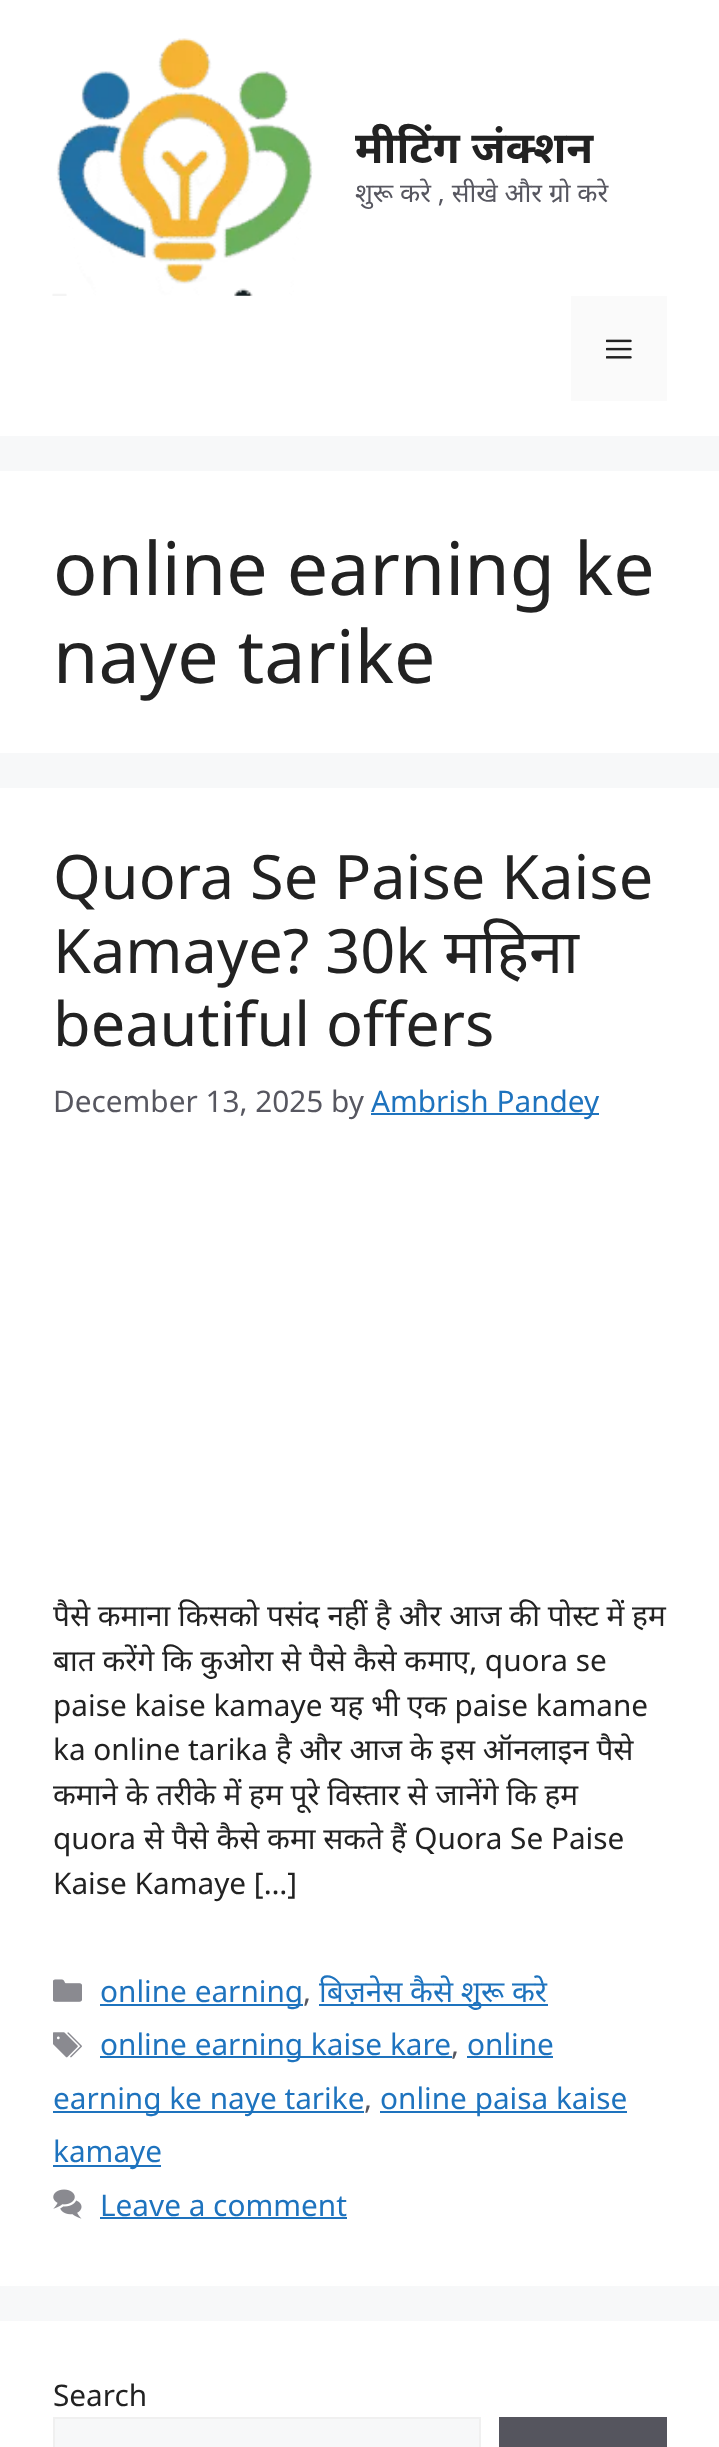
<svg xmlns="http://www.w3.org/2000/svg" width="719" height="2447" viewBox="0 0 719 2447">
  <rect width="100%" height="100%" fill="rgb(247,248,249)"/>
  <rect x="0" y="0" width="719" height="436" fill="rgb(255,255,255)"/>
  <image x="52" y="38" width="261" height="258" href="pic1.png"/>
  <text x="355" y="163" font-family="Noto Sans" font-size="43.75" font-weight="bold" fill="rgb(34,34,34)">मीटिंग जंक्शन</text>
  <text x="355" y="202" font-family="Noto Sans" font-size="26.25" fill="rgb(87,87,96)">शुरू करे , सीखे और ग्रो करे</text>
  <rect x="571" y="296" width="96" height="105" fill="rgb(250,250,250)"/>
  <image x="606" y="339" width="26" height="20" href="pic2.png"/>
  <rect x="0" y="471" width="719" height="282" fill="rgb(255,255,255)"/>
  <g font-family="Noto Sans" font-size="73.5" fill="rgb(34,34,34)">
    <text>
      <tspan x="53" y="595">online earning ke</tspan>
      <tspan x="53" y="683">naye tarike</tspan>
    </text>
  </g>
  <rect x="0" y="788" width="719" height="1498" fill="rgb(255,255,255)"/>
  <g font-family="Noto Sans" font-size="61.25" fill="rgb(34,34,34)">
    <text>
      <tspan x="53" y="899">Quora Se Paise Kaise</tspan>
      <tspan x="53" y="973">Kamaye? 30k महिना</tspan>
      <tspan x="53" y="1046">beautiful offers</tspan>
    </text>
  </g>
  <text x="53" y="1112" font-family="Noto Sans" font-size="29.75" fill="rgb(87,87,96)">December 13, 2025 by</text>
  <rect x="371" y="1113" width="228" height="2" fill="rgb(30,115,190)"/>
  <text x="371" y="1112" font-family="Noto Sans" font-size="29.75" fill="rgb(30,115,190)">Ambrish Pandey</text>
  <g font-family="Noto Sans" font-size="29.75" fill="rgb(34,34,34)">
    <text>
      <tspan x="53" y="1626">पैसे कमाना किसको पसंद नहीं है और आज की पोस्ट में हम</tspan>
      <tspan x="53" y="1671">बात करेंगे कि कुओरा से पैसे कैसे कमाए, quora se</tspan>
      <tspan x="53" y="1716">paise kaise kamaye यह भी एक paise kamane</tspan>
      <tspan x="53" y="1760">ka online tarika है और आज के इस ऑनलाइन पैसे</tspan>
      <tspan x="53" y="1805">कमाने के तरीके में हम पूरे विस्तार से जानेंगे कि हम</tspan>
      <tspan x="53" y="1849">quora से पैसे कैसे कमा सकते हैं Quora Se Paise</tspan>
      <tspan x="53" y="1894">Kaise Kamaye […]</tspan>
    </text>
  </g>
  <image x="53" y="1979" width="29" height="23" href="pic3.png"/>
  <rect x="100" y="2004" width="203" height="2" fill="rgb(30,115,190)"/>
  <text x="100" y="2002" font-family="Noto Sans" font-size="29.75" fill="rgb(30,115,190)">online earning</text>
  <text x="303" y="2002" font-family="Noto Sans" font-size="29.75" fill="rgb(87,87,96)">,</text>
  <rect x="319" y="2004" width="229" height="2" fill="rgb(30,115,190)"/>
  <text x="319" y="2002" font-family="Noto Sans" font-size="29.75" fill="rgb(30,115,190)">बिज़नेस कैसे शुरू करे</text>
  <image x="53" y="2032" width="29" height="26" href="pic4.png"/>
  <rect x="100" y="2056" width="352" height="2" fill="rgb(30,115,190)"/>
  <text x="100" y="2055" font-family="Noto Sans" font-size="29.75" fill="rgb(30,115,190)">online earning kaise kare</text>
  <text x="451" y="2055" font-family="Noto Sans" font-size="29.75" fill="rgb(87,87,96)">,</text>
  <text x="467" y="2055" font-family="Noto Sans" font-size="29.75" fill="rgb(30,115,190)">online</text>
  <rect x="467" y="2056" width="86" height="2" fill="rgb(30,115,190)"/>
  <rect x="53" y="2111" width="311" height="2" fill="rgb(30,115,190)"/>
  <text x="53" y="2109" font-family="Noto Sans" font-size="29.75" fill="rgb(30,115,190)">earning ke naye tarike</text>
  <text x="364" y="2109" font-family="Noto Sans" font-size="29.75" fill="rgb(87,87,96)">,</text>
  <rect x="380" y="2111" width="247" height="2" fill="rgb(30,115,190)"/>
  <text x="380" y="2109" font-family="Noto Sans" font-size="29.75" fill="rgb(30,115,190)">online paisa kaise</text>
  <rect x="53" y="2165" width="108" height="2" fill="rgb(30,115,190)"/>
  <text x="53" y="2162" font-family="Noto Sans" font-size="29.75" fill="rgb(30,115,190)">kamaye</text>
  <image x="53" y="2189" width="29" height="30" href="pic5.png"/>
  <text x="100" y="2216" font-family="Noto Sans" font-size="29.75" fill="rgb(30,115,190)">Leave a comment</text>
  <rect x="100" y="2217" width="247" height="2" fill="rgb(30,115,190)"/>
  <rect x="0" y="2321" width="719" height="126" fill="rgb(255,255,255)"/>
  <text x="53" y="2406" font-family="Noto Sans" font-size="29.75" fill="rgb(34,34,34)">Search</text>
  <rect x="54" y="2418" width="426" height="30" fill="rgb(247,248,249)" stroke="rgb(240,240,240)" stroke-width="2"/>
  <rect x="499" y="2417" width="168" height="30" fill="rgb(85,85,94)"/>
</svg>
